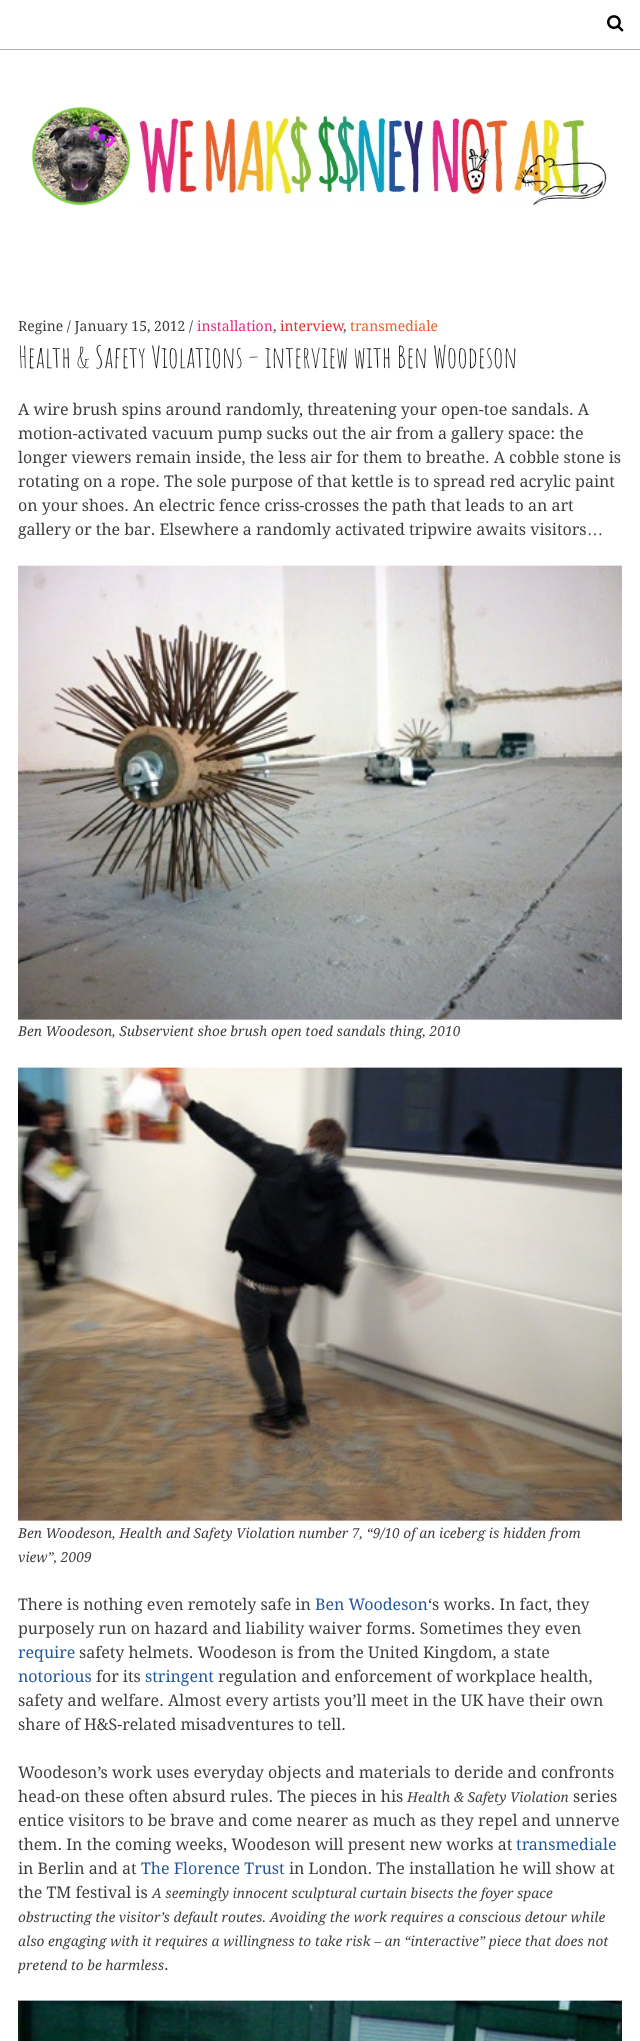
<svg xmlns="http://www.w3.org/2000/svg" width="640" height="2041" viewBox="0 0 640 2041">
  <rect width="100%" height="100%" fill="rgb(255,255,255)"/>
  <rect x="0" y="49" width="640" height="1" fill="rgb(175,175,175)"/>
  <image x="607" y="15" width="17" height="17" href="pic1.png"/>
  <image x="31" y="106" width="576" height="100" href="pic2.png"/>
  <text x="18" y="331" font-family="Droid Serif" font-size="14" fill="rgb(61,62,64)">Regine / January 15, 2012 /</text>
  <text x="197" y="331" font-family="Droid Serif" font-size="14" fill="rgb(228,42,133)">installation</text>
  <text x="273" y="331" font-family="Droid Serif" font-size="14" fill="rgb(61,62,64)">,</text>
  <text x="280" y="331" font-family="Droid Serif" font-size="14" fill="rgb(227,47,44)">interview</text>
  <text x="350" y="331" font-family="Droid Serif" font-size="14" fill="rgb(234,97,44)">transmediale</text>
  <text x="343" y="331" font-family="Droid Serif" font-size="14" fill="rgb(61,62,64)">,</text>
  <text x="18" y="368" font-family="Amatic SC" font-size="30" fill="rgb(23,22,23)">Health &amp; Safety Violations – interview with Ben Woodeson</text>
  <g font-family="Droid Serif" font-size="16" fill="rgb(61,62,64)">
    <text>
      <tspan x="18" y="415">A wire brush spins around randomly, threatening your open-toe sandals. A</tspan>
      <tspan x="18" y="439">motion-activated vacuum pump sucks out the air from a gallery space: the</tspan>
      <tspan x="18" y="463">longer viewers remain inside, the less air for them to breathe. A cobble stone is</tspan>
      <tspan x="18" y="487">rotating on a rope. The sole purpose of that kettle is to spread red acrylic paint</tspan>
      <tspan x="18" y="511">on your shoes. An electric fence criss-crosses the path that leads to an art</tspan>
      <tspan x="18" y="535">gallery or the bar. Elsewhere a randomly activated tripwire awaits visitors</tspan>
    </text>
  </g>
  <text x="587" y="535" font-family="Liberation Serif" font-size="16" fill="rgb(61,62,64)">…</text>
  <image x="18" y="565" width="604" height="455" href="pic3.png"/>
  <text x="18" y="1036" font-family="Droid Serif" font-size="13.75" font-style="italic" fill="rgb(61,62,64)">Ben Woodeson, Subservient shoe brush open toed sandals thing, 2010</text>
  <image x="18" y="1067" width="604" height="454" href="pic4.png"/>
  <g font-family="Droid Serif" font-size="13.75" font-style="italic" fill="rgb(61,62,64)">
    <text>
      <tspan x="18" y="1538">Ben Woodeson, Health and Safety Violation number 7, “9/10 of an iceberg is hidden from</tspan>
      <tspan x="18" y="1562">view”, 2009</tspan>
    </text>
  </g>
  <text x="18" y="1610" font-family="Droid Serif" font-size="16" fill="rgb(61,62,64)">There is nothing even remotely safe in</text>
  <text x="315" y="1610" font-family="Droid Serif" font-size="16" fill="rgb(35,87,157)">Ben Woodeson</text>
  <g font-family="Droid Serif" font-size="16" fill="rgb(61,62,64)">
    <text x="428" y="1610">‘s works. In fact, they</text>
    <text x="18" y="1634">purposely run on hazard and liability waiver forms. Sometimes they even</text>
  </g>
  <text x="18" y="1658" font-family="Droid Serif" font-size="16" fill="rgb(35,87,157)">require</text>
  <text x="79" y="1658" font-family="Droid Serif" font-size="16" fill="rgb(61,62,64)">safety helmets. Woodeson is from the United Kingdom, a state</text>
  <text x="18" y="1682" font-family="Droid Serif" font-size="16" fill="rgb(35,87,157)">notorious</text>
  <text x="96" y="1682" font-family="Droid Serif" font-size="16" fill="rgb(61,62,64)">for its</text>
  <text x="145" y="1682" font-family="Droid Serif" font-size="16" fill="rgb(35,87,157)">stringent</text>
  <g font-family="Droid Serif" font-size="16" fill="rgb(61,62,64)">
    <text x="218" y="1682">regulation and enforcement of workplace health,</text>
    <text>
      <tspan x="18" y="1706">safety and welfare. Almost every artists you’ll meet in the UK have their own</tspan>
      <tspan x="18" y="1730">share of H&amp;S-related misadventures to tell.</tspan>
    </text>
    <text>
      <tspan x="18" y="1778">Woodeson’s work uses everyday objects and materials to deride and confronts</tspan>
      <tspan x="18" y="1802">head-on these often absurd rules. The pieces in his</tspan>
    </text>
  </g>
  <text x="407" y="1802" font-family="Droid Serif" font-size="13.75" font-style="italic" fill="rgb(61,62,64)">Health &amp; Safety Violation</text>
  <g font-family="Droid Serif" font-size="16" fill="rgb(61,62,64)">
    <text x="573" y="1802">series</text>
    <text>
      <tspan x="18" y="1826">entice visitors to be brave and come nearer as much as they repel and unnerve</tspan>
      <tspan x="18" y="1850">them. In the coming weeks, Woodeson will present new works at</tspan>
    </text>
  </g>
  <text x="516" y="1850" font-family="Droid Serif" font-size="16" fill="rgb(35,87,157)">transmediale</text>
  <text x="18" y="1874" font-family="Droid Serif" font-size="16" fill="rgb(61,62,64)">in Berlin and at</text>
  <text x="141" y="1874" font-family="Droid Serif" font-size="16" fill="rgb(35,87,157)">The Florence Trust</text>
  <g font-family="Droid Serif" font-size="16" fill="rgb(61,62,64)">
    <text x="289" y="1874">in London. The installation he will show at</text>
    <text x="18" y="1898">the TM festival is</text>
  </g>
  <g font-family="Droid Serif" font-size="13.75" font-style="italic" fill="rgb(61,62,64)">
    <text x="152" y="1898">A seemingly innocent sculptural curtain bisects the foyer space</text>
    <text>
      <tspan x="18" y="1922">obstructing the visitor’s default routes. Avoiding the work requires a conscious detour while</tspan>
      <tspan x="18" y="1946">also engaging with it requires a willingness to take risk – an “interactive” piece that does not</tspan>
      <tspan x="18" y="1970">pretend to be harmless</tspan>
    </text>
  </g>
  <text x="164" y="1970" font-family="Droid Serif" font-size="16" fill="rgb(61,62,64)">.</text>
  <image x="18" y="2000" width="604" height="41" href="pic5.png"/>
</svg>
